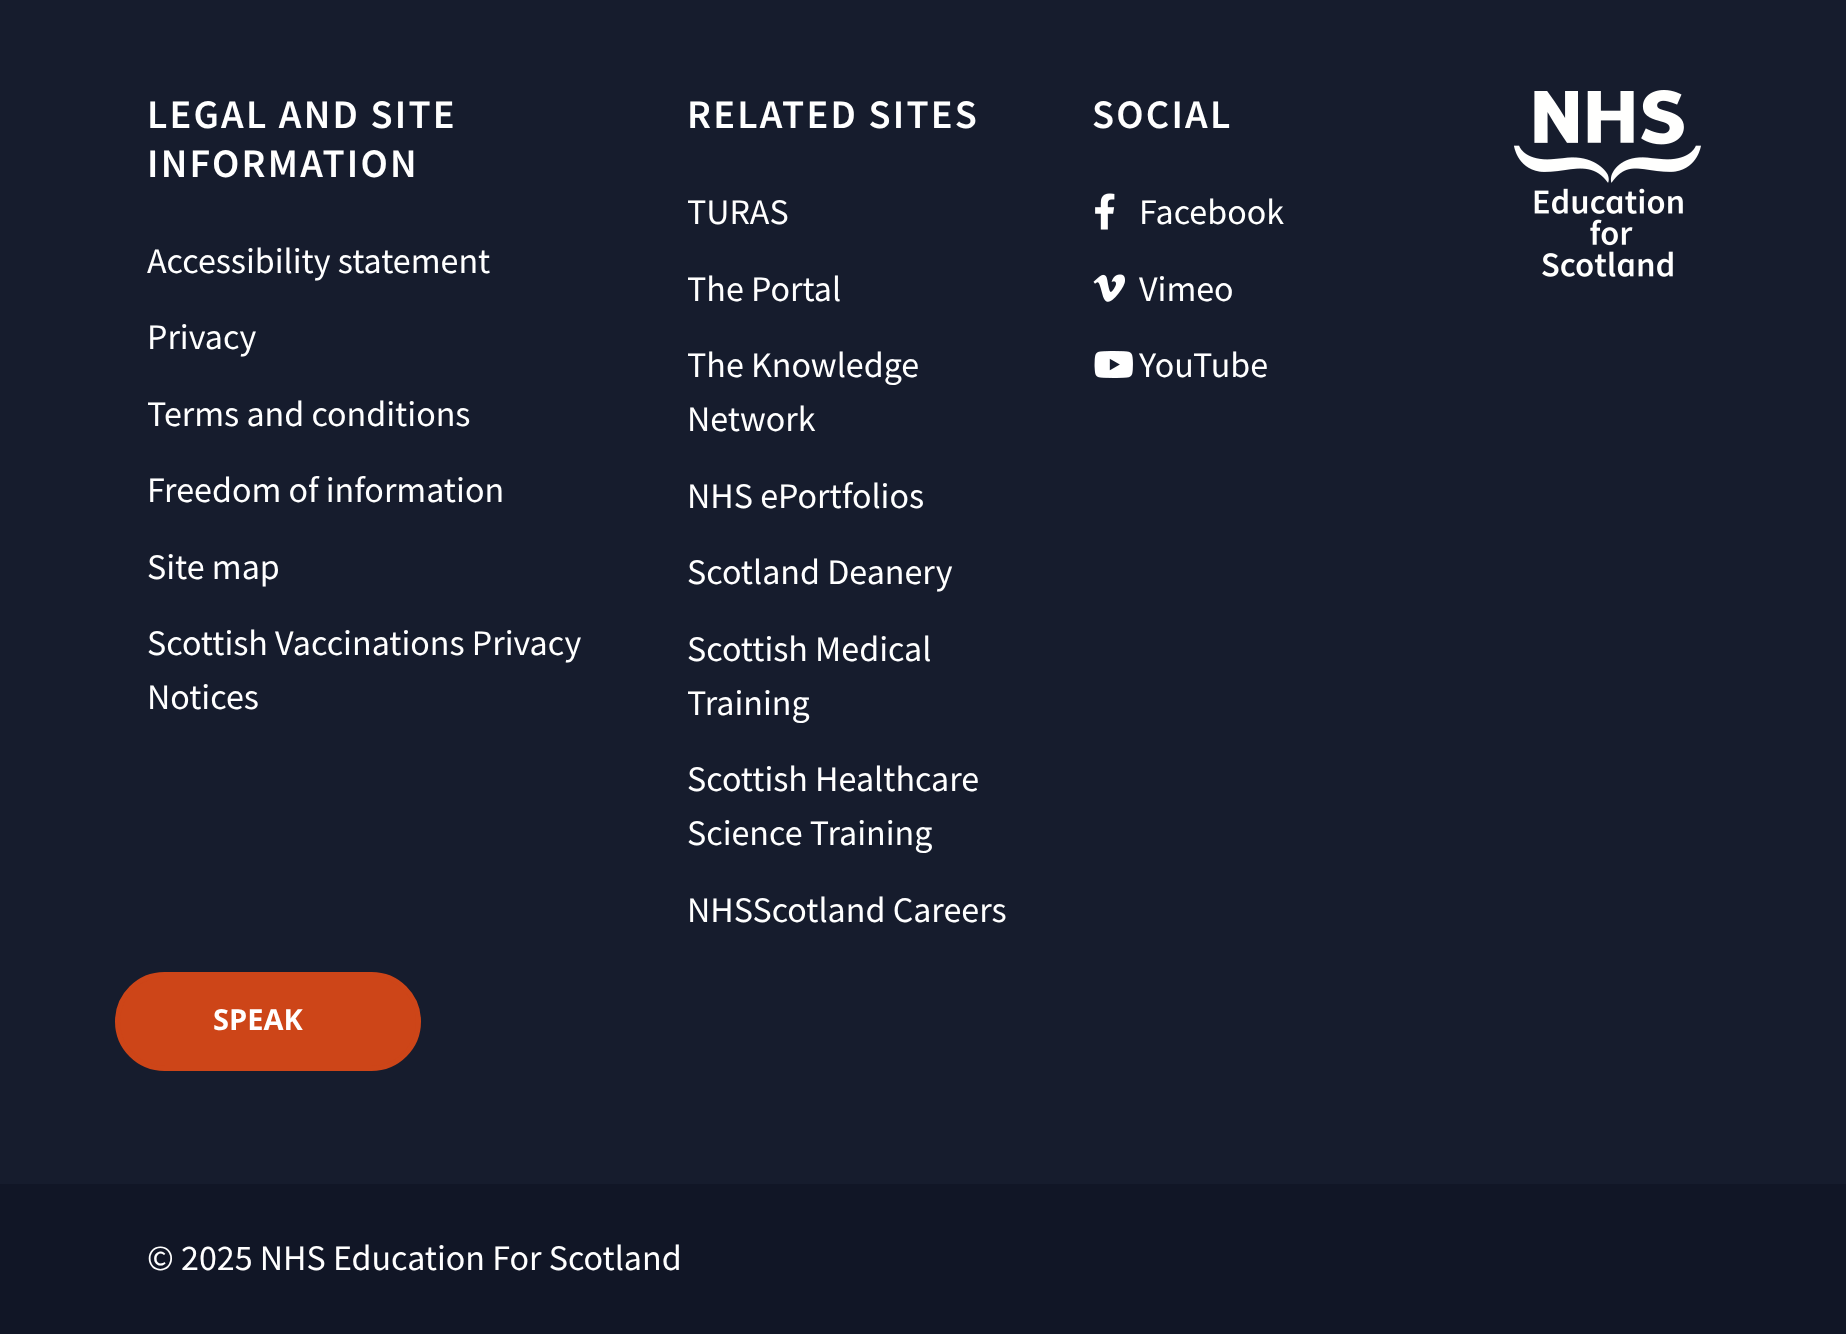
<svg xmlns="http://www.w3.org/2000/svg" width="1846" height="1334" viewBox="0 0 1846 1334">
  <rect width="100%" height="100%" fill="rgb(22,28,45)"/>
  <g font-family="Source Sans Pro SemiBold" font-size="40.5" font-weight="600" letter-spacing="2.25" fill="rgb(255,255,255)">
    <text>
      <tspan x="147" y="128">LEGAL AND SITE</tspan>
      <tspan x="147" y="177">INFORMATION</tspan>
    </text>
  </g>
  <g font-family="Source Sans Pro" font-size="36" fill="rgb(255,255,255)">
    <text x="147" y="273">Accessibility statement</text>
    <text x="147" y="349">Privacy</text>
    <text x="147" y="426">Terms and conditions</text>
    <text x="147" y="502">Freedom of information</text>
    <text x="147" y="579">Site map</text>
    <text>
      <tspan x="147" y="655">Scottish Vaccinations Privacy</tspan>
      <tspan x="147" y="709">Notices</tspan>
    </text>
  </g>
  <text x="687" y="128" font-family="Source Sans Pro SemiBold" font-size="40.5" font-weight="600" letter-spacing="2.25" fill="rgb(255,255,255)">RELATED SITES</text>
  <g font-family="Source Sans Pro" font-size="36" fill="rgb(255,255,255)">
    <text x="687" y="224">TURAS</text>
    <text x="687" y="301">The Portal</text>
    <text>
      <tspan x="687" y="377">The Knowledge</tspan>
      <tspan x="687" y="431">Network</tspan>
    </text>
    <text x="687" y="508">NHS ePortfolios</text>
    <text x="687" y="584">Scotland Deanery</text>
    <text>
      <tspan x="687" y="661">Scottish Medical</tspan>
      <tspan x="687" y="715">Training</tspan>
    </text>
    <text>
      <tspan x="687" y="791">Scottish Healthcare</tspan>
      <tspan x="687" y="845">Science Training</tspan>
    </text>
    <text x="687" y="922">NHSScotland Careers</text>
  </g>
  <text x="1092" y="128" font-family="Source Sans Pro SemiBold" font-size="40.5" font-weight="600" letter-spacing="2.25" fill="rgb(255,255,255)">SOCIAL</text>
  <image x="1095" y="193" width="20" height="37" href="pic1.png"/>
  <text x="1139" y="224" font-family="Source Sans Pro" font-size="36" fill="rgb(255,255,255)">Facebook</text>
  <image x="1093" y="274" width="32" height="28" href="pic2.png"/>
  <text x="1139" y="301" font-family="Source Sans Pro" font-size="36" fill="rgb(255,255,255)">Vimeo</text>
  <image x="1094" y="351" width="39" height="27" href="pic3.png"/>
  <text x="1139" y="377" font-family="Source Sans Pro" font-size="36" fill="rgb(255,255,255)">YouTube</text>
  <image x="1514" y="90" width="187" height="187" href="pic4.png"/>
  <rect x="117.5" y="974.5" width="301" height="94" rx="47" fill="rgb(205,69,24)" stroke="rgb(205,69,24)" stroke-width="5"/>
  <text x="213" y="1030" font-family="Open Sans" font-size="29" font-weight="bold" fill="rgb(255,255,255)">SPEAK</text>
  <rect x="0" y="1184" width="1846" height="150" fill="rgb(17,22,38)"/>
  <text x="147" y="1270" font-family="Source Sans Pro" font-size="36" fill="rgb(255,255,255)">© 2025 NHS Education For Scotland</text>
</svg>
